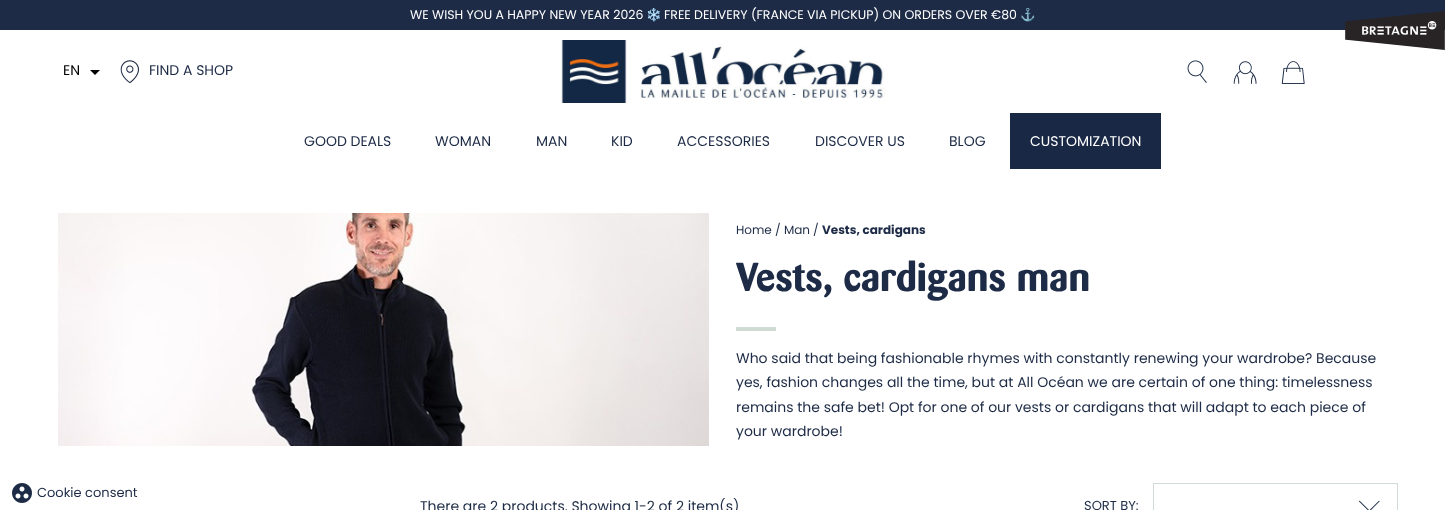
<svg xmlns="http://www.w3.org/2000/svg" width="1445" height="510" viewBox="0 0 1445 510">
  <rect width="100%" height="100%" fill="rgb(255,255,255)"/>
  <rect x="0" y="0" width="1445" height="30" fill="rgb(29,43,70)"/>
  <text x="410" y="19" font-family="Poppins" font-size="12.5" fill="rgb(255,255,255)">WE WISH YOU A HAPPY NEW YEAR 2026</text>
  <text x="646" y="19" font-family="Noto Color Emoji" font-size="12.5" fill="rgb(255,255,255)">❄️</text>
  <text x="664" y="19" font-family="Poppins" font-size="12.5" fill="rgb(255,255,255)">FREE DELIVERY (FRANCE VIA PICKUP) ON ORDERS OVER €80</text>
  <text x="1020" y="19" font-family="Noto Color Emoji" font-size="12.5" fill="rgb(255,255,255)">⚓</text>
  <image x="1345" y="11" width="100" height="39" href="pic1.png"/>
  <text x="63" y="75" font-family="Poppins" font-size="14" fill="rgb(0,0,0)">EN</text>
  <path d="M90 70H100L95 75Z" fill="rgb(0,0,0)"/>
  <image x="120" y="60" width="19" height="24" href="pic2.png"/>
  <text x="149" y="75" font-family="Poppins" font-size="14" fill="rgb(29,43,70)">FIND A SHOP</text>
  <image x="561" y="40" width="324" height="63" href="pic3.png"/>
  <image x="1187" y="60" width="20" height="23" href="pic4.png"/>
  <image x="1233" y="61" width="24" height="23" href="pic5.png"/>
  <image x="1281" y="61" width="24" height="23" href="pic6.png"/>
  <g font-family="Poppins" font-size="14" fill="rgb(29,43,70)">
    <text x="304" y="146">GOOD DEALS</text>
    <text x="435" y="146">WOMAN</text>
    <text x="536" y="146">MAN</text>
    <text x="611" y="146">KID</text>
    <text x="677" y="146">ACCESSORIES</text>
    <text x="815" y="146">DISCOVER US</text>
    <text x="949" y="146">BLOG</text>
  </g>
  <rect x="1010" y="113" width="151" height="56" fill="rgb(24,40,69)"/>
  <text x="1030" y="146" font-family="Poppins" font-size="14" fill="rgb(255,255,255)">CUSTOMIZATION</text>
  <image x="58" y="213" width="651" height="233" href="pic7.png"/>
  <g font-family="Poppins" font-size="12" fill="rgb(29,43,70)">
    <text x="736" y="234">Home</text>
    <text x="775" y="234">/ Man</text>
    <text x="813" y="234">/</text>
  </g>
  <text x="822" y="234" font-family="Poppins" font-size="12" font-weight="bold" fill="rgb(29,43,70)">Vests, cardigans</text>
  <text x="736" y="291" font-family="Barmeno" font-size="40" font-weight="bold" fill="rgb(29,43,70)">Vests, cardigans man</text>
  <rect x="736" y="327" width="40" height="4" fill="rgb(209,219,214)"/>
  <g font-family="Poppins" font-size="14" fill="rgb(29,43,70)">
    <text>
      <tspan x="736" y="363">Who said that being fashionable rhymes with constantly renewing your wardrobe? Because</tspan>
      <tspan x="736" y="387">yes, fashion changes all the time, but at All Océan we are certain of one thing: timelessness</tspan>
      <tspan x="736" y="412">remains the safe bet! Opt for one of our vests or cardigans that will adapt to each piece of</tspan>
      <tspan x="736" y="436">your wardrobe!</tspan>
    </text>
    <text x="420" y="511">There are 2 products. Showing 1-2 of 2 item(s)</text>
  </g>
  <text x="1084" y="510" font-family="Poppins" font-size="13" fill="rgb(29,43,70)">SORT BY:</text>
  <rect x="1153.5" y="483.5" width="244" height="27" fill="none" stroke="rgb(209,219,214)"/>
  <image x="1359" y="500" width="21" height="10" href="pic8.png"/>
  <image x="12" y="483" width="20" height="20" href="pic9.png"/>
  <text x="37" y="497" font-family="Poppins" font-size="13" fill="rgb(29,43,70)">Cookie consent</text>
</svg>
